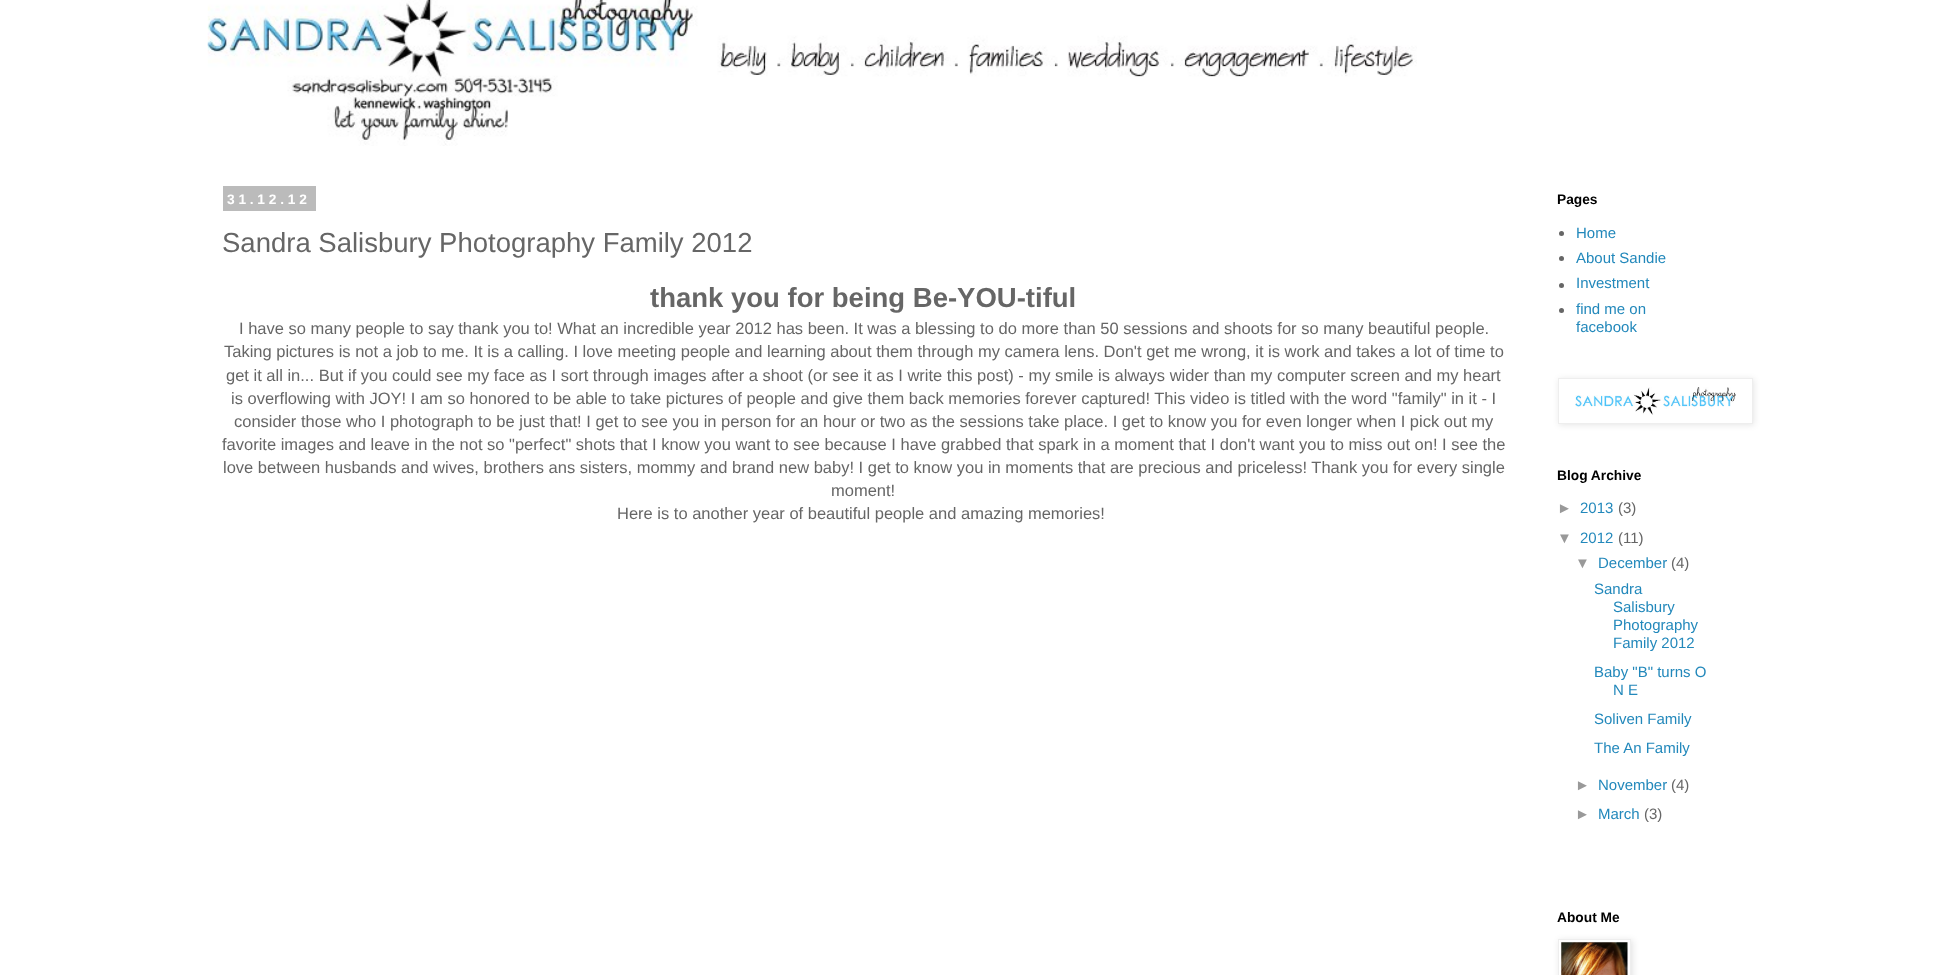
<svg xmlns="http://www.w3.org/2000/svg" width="1951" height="975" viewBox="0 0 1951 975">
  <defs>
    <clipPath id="clip1"><path d="M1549 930H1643V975H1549ZM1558 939H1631V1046H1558Z" clip-rule="evenodd"/></clipPath>
  </defs>
  <rect width="100%" height="100%" fill="rgb(255,255,255)"/>
  <image x="207" y="0" width="1210" height="146" href="pic1.png"/>
  <rect x="223" y="186" width="93" height="25" fill="rgb(187,187,187)"/>
  <text x="227" y="204" font-family="Liberation Sans" font-size="13.75" font-weight="bold" letter-spacing="3.75" fill="rgb(255,255,255)">31.12.12</text>
  <text x="222" y="252" font-family="Liberation Sans" font-size="27.5" fill="rgb(102,102,102)">Sandra Salisbury Photography Family 2012</text>
  <text x="650" y="307" font-family="Liberation Sans" font-size="27.5" font-weight="bold" fill="rgb(102,102,102)">thank you for being Be-YOU-tiful</text>
  <g font-family="Liberation Sans" font-size="16.5" fill="rgb(102,102,102)">
    <text x="239" y="334">I have so many people to say thank you to! What an incredible year 2012 has been. It was a blessing to do more than 50 sessions and shoots for so many beautiful people.</text>
    <text x="224" y="357">Taking pictures is not a job to me. It is a calling. I love meeting people and learning about them through my camera lens. Don't get me wrong, it is work and takes a lot of time to</text>
    <text x="226" y="381">get it all in... But if you could see my face as I sort through images after a shoot (or see it as I write this post) - my smile is always wider than my computer screen and my heart</text>
    <text x="231" y="404">is overflowing with JOY! I am so honored to be able to take pictures of people and give them back memories forever captured! This video is titled with the word "family" in it - I</text>
    <text x="234" y="427">consider those who I photograph to be just that! I get to see you in person for an hour or two as the sessions take place. I get to know you for even longer when I pick out my</text>
    <text x="222" y="450">favorite images and leave in the not so "perfect" shots that I know you want to see because I have grabbed that spark in a moment that I don't want you to miss out on! I see the</text>
    <text x="223" y="473">love between husbands and wives, brothers ans sisters, mommy and brand new baby! I get to know you in moments that are precious and priceless! Thank you for every single</text>
    <text x="831" y="496">moment!</text>
    <text x="617" y="519">Here is to another year of beautiful people and amazing memories!</text>
  </g>
  <text x="1557" y="204" font-family="Liberation Sans" font-size="13.75" font-weight="bold" fill="rgb(0,0,0)">Pages</text>
  <circle cx="1561.5" cy="233.5" r="2.5" fill="rgb(102,102,102)"/>
  <text x="1576" y="238" font-family="Liberation Sans" font-size="15" fill="rgb(34,136,187)">Home</text>
  <circle cx="1561.5" cy="258.5" r="2.5" fill="rgb(102,102,102)"/>
  <text x="1576" y="263" font-family="Liberation Sans" font-size="15" fill="rgb(34,136,187)">About Sandie</text>
  <circle cx="1561.5" cy="285.5" r="2.5" fill="rgb(102,102,102)"/>
  <text x="1576" y="288" font-family="Liberation Sans" font-size="15" fill="rgb(34,136,187)">Investment</text>
  <circle cx="1561.5" cy="310.5" r="2.5" fill="rgb(102,102,102)"/>
  <g font-family="Liberation Sans" font-size="15" fill="rgb(34,136,187)">
    <text>
      <tspan x="1576" y="314">find me on</tspan>
      <tspan x="1576" y="332">facebook</tspan>
    </text>
  </g>
  <rect x="1559" y="379" width="195" height="46" fill="rgba(0,0,0,0.1)" filter="blur(3px)"/>
  <rect x="1558.5" y="378.5" width="194" height="45" fill="rgb(255,255,255)" stroke="rgb(238,238,238)"/>
  <image x="1575" y="387" width="161" height="28" href="pic2.png"/>
  <text x="1557" y="480" font-family="Liberation Sans" font-size="13.75" font-weight="bold" fill="rgb(0,0,0)">Blog Archive</text>
  <text x="1557" y="513" font-family="Liberation Sans" font-size="15" fill="rgb(153,153,153)">►</text>
  <text x="1580" y="513" font-family="Liberation Sans" font-size="15" fill="rgb(34,136,187)">2013</text>
  <text x="1618" y="513" font-family="Liberation Sans" font-size="15" fill="rgb(102,102,102)">(3)</text>
  <text x="1557" y="543" font-family="Liberation Sans" font-size="15" fill="rgb(153,153,153)">▼</text>
  <text x="1580" y="543" font-family="Liberation Sans" font-size="15" fill="rgb(34,136,187)">2012</text>
  <text x="1618" y="543" font-family="Liberation Sans" font-size="15" fill="rgb(102,102,102)">(11)</text>
  <text x="1575" y="568" font-family="Liberation Sans" font-size="15" fill="rgb(153,153,153)">▼</text>
  <text x="1598" y="568" font-family="Liberation Sans" font-size="15" fill="rgb(34,136,187)">December</text>
  <text x="1671" y="568" font-family="Liberation Sans" font-size="15" fill="rgb(102,102,102)">(4)</text>
  <g font-family="Liberation Sans" font-size="15" fill="rgb(34,136,187)">
    <text x="1594" y="594">Sandra</text>
    <text>
      <tspan x="1613" y="612">Salisbury</tspan>
      <tspan x="1613" y="630">Photography</tspan>
      <tspan x="1613" y="648">Family 2012</tspan>
    </text>
    <text x="1594" y="677">Baby "B" turns O</text>
    <text x="1613" y="695">N E</text>
    <text>
      <tspan x="1594" y="724">Soliven Family</tspan>
      <tspan x="1594" y="753">The An Family</tspan>
    </text>
  </g>
  <text x="1575" y="790" font-family="Liberation Sans" font-size="15" fill="rgb(153,153,153)">►</text>
  <text x="1598" y="790" font-family="Liberation Sans" font-size="15" fill="rgb(34,136,187)">November</text>
  <text x="1671" y="790" font-family="Liberation Sans" font-size="15" fill="rgb(102,102,102)">(4)</text>
  <text x="1575" y="819" font-family="Liberation Sans" font-size="15" fill="rgb(153,153,153)">►</text>
  <text x="1598" y="819" font-family="Liberation Sans" font-size="15" fill="rgb(34,136,187)">March</text>
  <text x="1644" y="819" font-family="Liberation Sans" font-size="15" fill="rgb(102,102,102)">(3)</text>
  <text x="1557" y="922" font-family="Liberation Sans" font-size="13.75" font-weight="bold" fill="rgb(0,0,0)">About Me</text>
  <g clip-path="url(#clip1)">
    <rect x="1559" y="940" width="74" height="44" fill="rgba(0,0,0,0.1)" filter="blur(3px)"/>
  </g>
  <rect x="1558.5" y="939.5" width="72" height="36" fill="none" stroke="rgb(238,238,238)"/>
  <image x="1561" y="942" width="67" height="33" href="pic3.png"/>
</svg>
